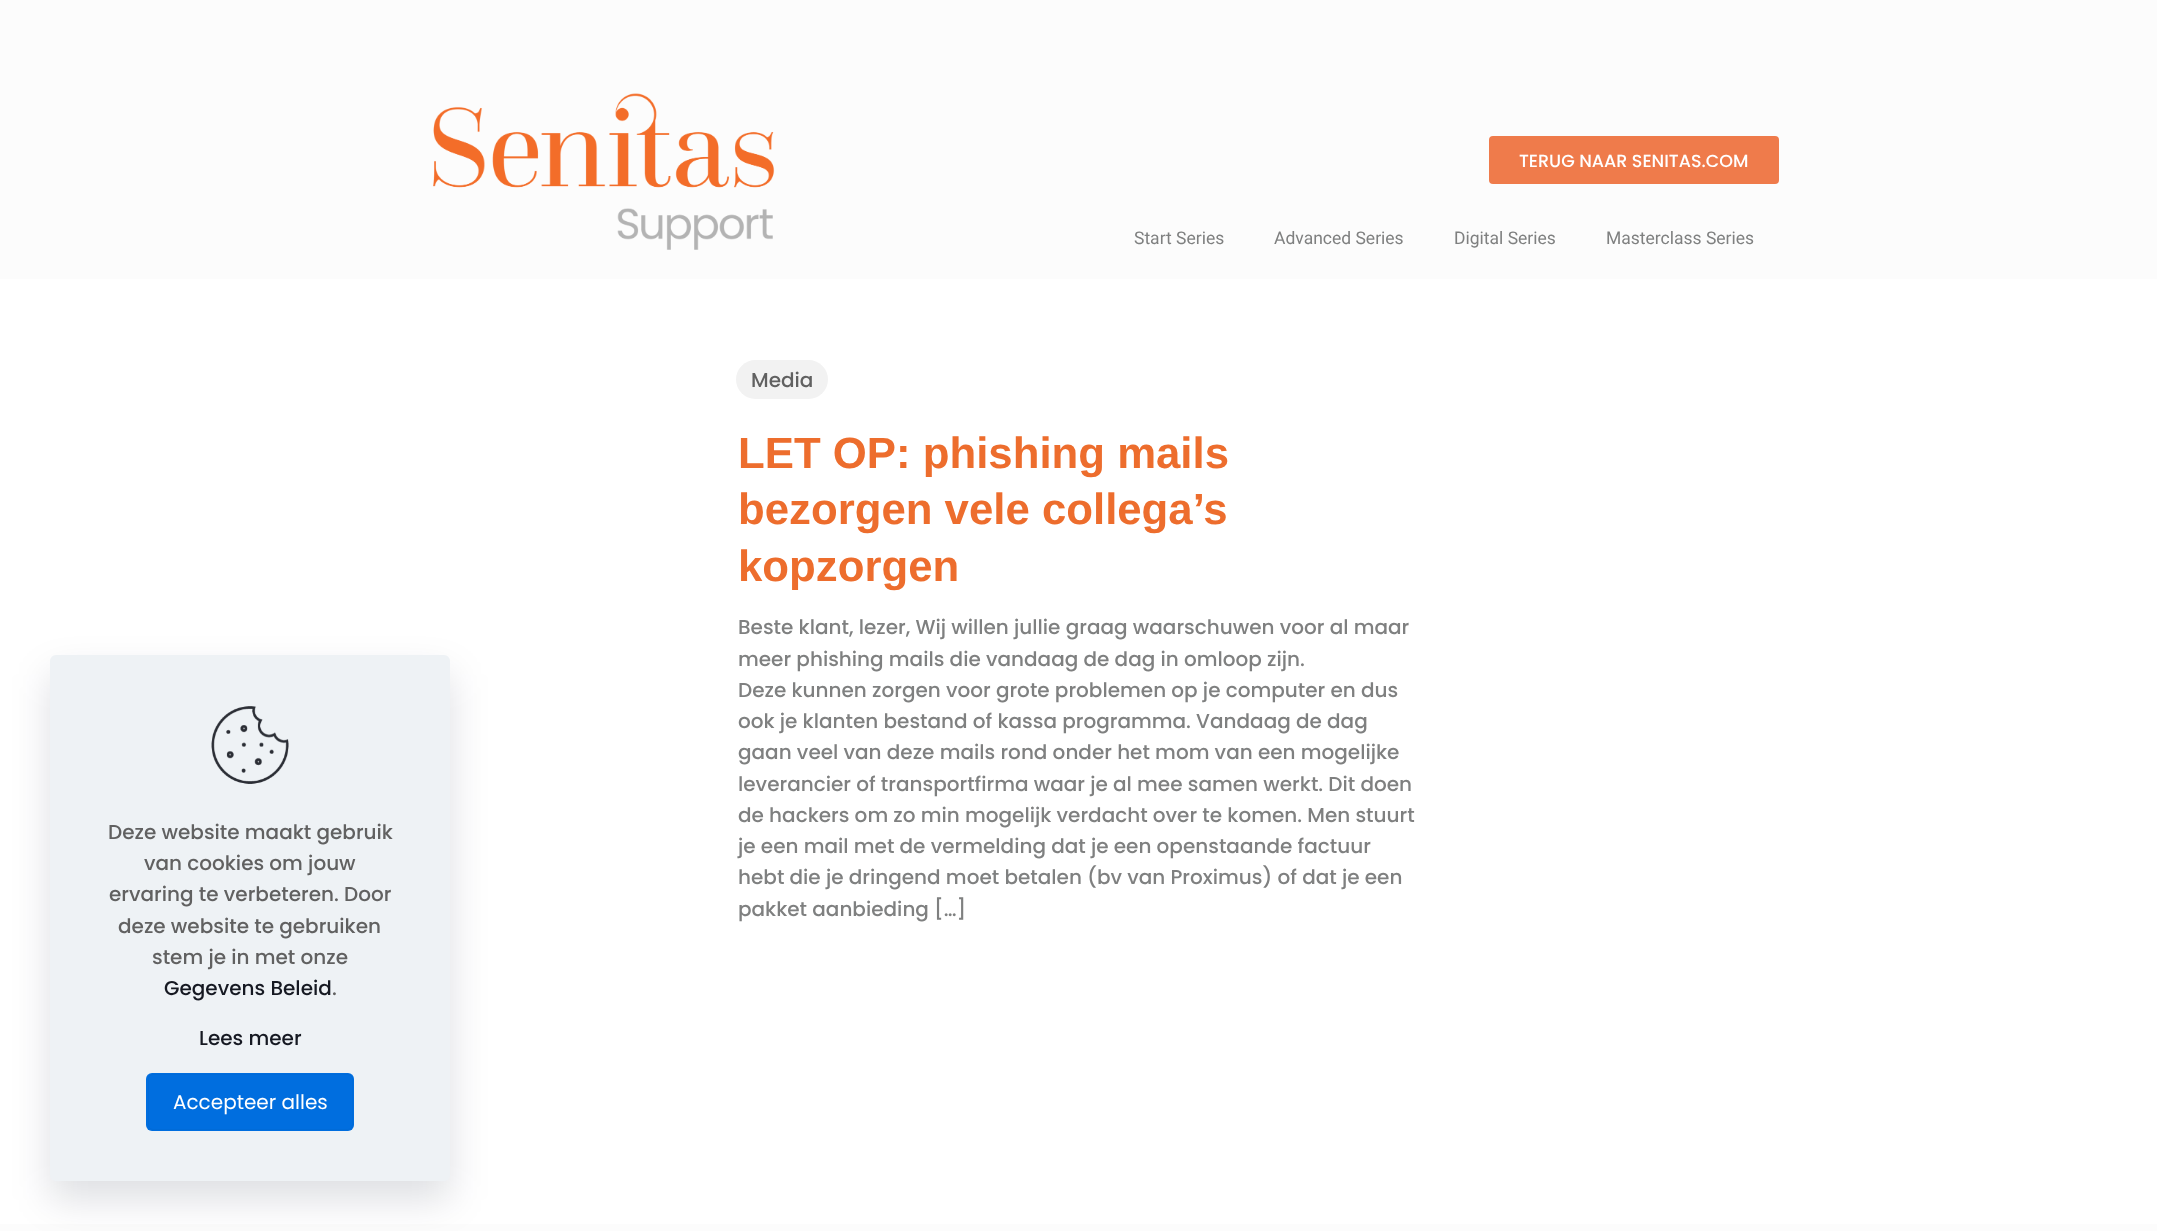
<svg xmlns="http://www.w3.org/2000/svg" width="2157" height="1231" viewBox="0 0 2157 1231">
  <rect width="100%" height="100%" fill="rgb(252,252,252)"/>
  <image x="433" y="93" width="342" height="157" href="pic1.png"/>
  <rect x="1489" y="136" width="290" height="48" rx="4" fill="rgb(239,123,75)"/>
  <text x="1519" y="167" font-family="Poppins" font-size="17.5" font-weight="500" fill="rgb(255,255,255)">TERUG NAAR SENITAS.COM</text>
  <g font-family="Roboto" font-size="17.5" fill="rgb(127,128,128)">
    <text x="1134" y="244">Start Series</text>
    <text x="1274" y="244">Advanced Series</text>
    <text x="1454" y="244">Digital Series</text>
    <text x="1606" y="244">Masterclass Series</text>
  </g>
  <rect x="0" y="279" width="2157" height="945" fill="rgb(255,255,255)"/>
  <rect x="736" y="360" width="92" height="39" rx="19.5" fill="rgb(242,242,242)"/>
  <text x="751" y="387" font-family="Poppins" font-size="20" font-weight="500" fill="rgb(97,97,97)">Media</text>
  <g font-family="Liberation Sans" font-size="43.75" font-weight="bold" fill="rgb(237,109,45)">
    <text>
      <tspan x="738" y="468">LET OP: phishing mails</tspan>
      <tspan x="738" y="524">bezorgen vele collega’s</tspan>
      <tspan x="738" y="581">kopzorgen</tspan>
    </text>
  </g>
  <g font-family="Poppins" font-size="20" font-weight="500" fill="rgb(127,128,128)">
    <text>
      <tspan x="738" y="634">Beste klant, lezer, Wij willen jullie graag waarschuwen voor al maar</tspan>
      <tspan x="738" y="666">meer phishing mails die vandaag de dag in omloop zijn.</tspan>
      <tspan x="738" y="697">Deze kunnen zorgen voor grote problemen op je computer en dus</tspan>
      <tspan x="738" y="728">ook je klanten bestand of kassa programma. Vandaag de dag</tspan>
      <tspan x="738" y="759">gaan veel van deze mails rond onder het mom van een mogelijke</tspan>
      <tspan x="738" y="791">leverancier of transportfirma waar je al mee samen werkt. Dit doen</tspan>
      <tspan x="738" y="822">de hackers om zo min mogelijk verdacht over te komen. Men stuurt</tspan>
      <tspan x="738" y="853">je een mail met de vermelding dat je een openstaande factuur</tspan>
      <tspan x="738" y="884">hebt die je dringend moet betalen (bv van Proximus) of dat je een</tspan>
      <tspan x="738" y="916">pakket aanbieding […]</tspan>
    </text>
  </g>
  <rect x="50" y="674" width="400" height="526" rx="6" fill="rgba(1,7,39,0.13)" filter="blur(19px)"/>
  <rect x="50" y="655" width="400" height="526" rx="6" fill="rgb(238,242,245)"/>
  <image x="211" y="706" width="78" height="78" href="pic2.png"/>
  <g font-family="Poppins" font-size="20" font-weight="500" fill="rgb(97,97,97)">
    <text x="108" y="839">Deze website maakt gebruik</text>
    <text x="144" y="870">van cookies om jouw</text>
    <text x="109" y="901">ervaring te verbeteren. Door</text>
    <text x="118" y="933">deze website te gebruiken</text>
    <text x="152" y="964">stem je in met onze</text>
  </g>
  <text x="164" y="995" font-family="Poppins" font-size="20" font-weight="500" fill="rgb(22,25,34)">Gegevens Beleid</text>
  <text x="332" y="995" font-family="Poppins" font-size="20" font-weight="500" fill="rgb(97,97,97)">.</text>
  <text x="199" y="1045" font-family="Poppins" font-size="20" font-weight="500" fill="rgb(22,25,34)">Lees meer</text>
  <rect x="146" y="1073" width="208" height="58" rx="6" fill="rgb(0,110,223)"/>
  <rect x="148.5" y="1074.5" width="204" height="55" rx="4.5" fill="none" stroke="rgb(0,107,216)"/>
  <text x="173" y="1109" font-family="Poppins" font-size="20" fill="rgb(255,255,255)">Accepteer alles</text>
</svg>
